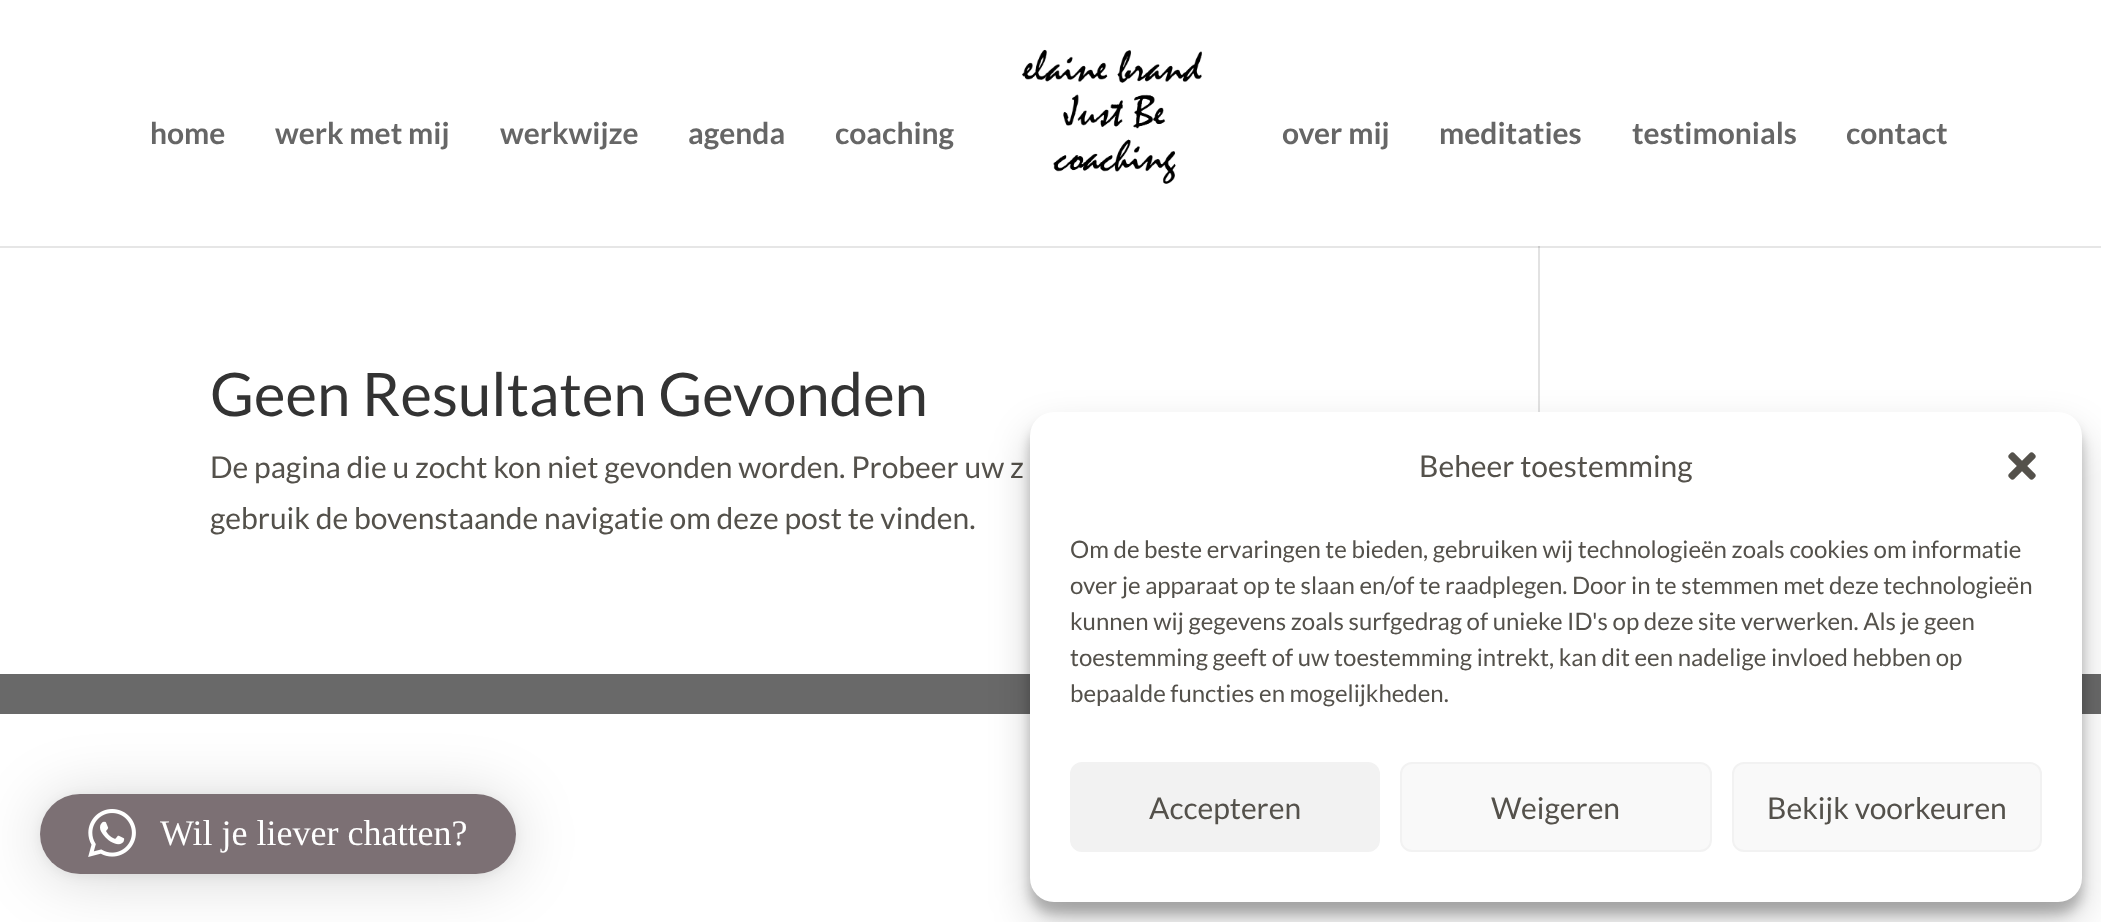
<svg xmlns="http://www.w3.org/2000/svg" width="2101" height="922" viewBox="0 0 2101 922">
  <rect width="100%" height="100%" fill="rgb(255,255,255)"/>
  <rect x="0" y="246" width="2101" height="2" fill="rgb(230,230,230)"/>
  <g font-family="Lato" font-size="30" font-weight="bold" fill="rgb(102,102,102)">
    <text x="150" y="144">home</text>
    <text x="275" y="144">werk met mij</text>
    <text x="500" y="144">werkwijze</text>
    <text x="688" y="144">agenda</text>
    <text x="835" y="144">coaching</text>
  </g>
  <image x="1022" y="49" width="180" height="135" href="pic1.png"/>
  <g font-family="Lato" font-size="30" font-weight="bold" fill="rgb(102,102,102)">
    <text x="1282" y="144">over mij</text>
    <text x="1439" y="144">meditaties</text>
    <text x="1632" y="144">testimonials</text>
    <text x="1846" y="144">contact</text>
  </g>
  <rect x="1538" y="246" width="2" height="166" fill="rgb(226,226,226)"/>
  <rect x="1538" y="246" width="2" height="2" fill="rgb(203,203,203)"/>
  <text x="210" y="416" font-family="Lato" font-size="60" fill="rgb(51,51,51)">Geen Resultaten Gevonden</text>
  <g font-family="Lato" font-size="30" fill="rgb(84,81,75)">
    <text>
      <tspan x="210" y="478">De pagina die u zocht kon niet gevonden worden. Probeer uw z</tspan>
      <tspan x="210" y="529">gebruik de bovenstaande navigatie om deze post te vinden.</tspan>
    </text>
  </g>
  <rect x="0" y="674" width="2101" height="40" fill="rgb(105,105,105)"/>
  <rect x="1030" y="424" width="1052" height="490" rx="24" fill="rgba(0,0,0,0.23)" filter="blur(6px)"/>
  <rect x="1030" y="432" width="1052" height="490" rx="24" fill="rgba(0,0,0,0.19)" filter="blur(20px)"/>
  <rect x="1030" y="412" width="1052" height="490" rx="24" fill="rgb(255,255,255)"/>
  <text x="1419" y="477" font-family="Lato" font-size="30" fill="rgb(84,81,75)">Beheer toestemming</text>
  <image x="2008" y="452" width="28" height="28" href="pic2.png"/>
  <g font-family="Lato" font-size="24" fill="rgb(84,81,75)">
    <text>
      <tspan x="1070" y="558">Om de beste ervaringen te bieden, gebruiken wij technologieën zoals cookies om informatie</tspan>
      <tspan x="1070" y="594">over je apparaat op te slaan en/of te raadplegen. Door in te stemmen met deze technologieën</tspan>
      <tspan x="1070" y="630">kunnen wij gegevens zoals surfgedrag of unieke ID's op deze site verwerken. Als je geen</tspan>
      <tspan x="1070" y="666">toestemming geeft of uw toestemming intrekt, kan dit een nadelige invloed hebben op</tspan>
      <tspan x="1070" y="702">bepaalde functies en mogelijkheden.</tspan>
    </text>
  </g>
  <rect x="1071" y="763" width="308" height="88" rx="11" fill="rgb(242,242,242)" stroke="rgb(242,242,242)" stroke-width="2"/>
  <text x="1149" y="819" font-family="Lato" font-size="30" fill="rgb(84,81,75)">Accepteren</text>
  <rect x="1401" y="763" width="310" height="88" rx="11" fill="rgb(249,249,249)" stroke="rgb(242,242,242)" stroke-width="2"/>
  <text x="1491" y="819" font-family="Lato" font-size="30" fill="rgb(84,81,75)">Weigeren</text>
  <rect x="1733" y="763" width="308" height="88" rx="11" fill="rgb(249,249,249)" stroke="rgb(242,242,242)" stroke-width="2"/>
  <text x="1767" y="819" font-family="Lato" font-size="30" fill="rgb(84,81,75)">Bekijk voorkeuren</text>
  <rect x="40" y="798" width="476" height="80" rx="40" fill="rgba(0,0,0,0.16)" filter="blur(32px)"/>
  <rect x="40" y="796" width="476" height="80" rx="40" fill="rgba(0,0,0,0.06)" filter="blur(6px)"/>
  <rect x="40" y="794" width="476" height="80" rx="40" fill="rgb(124,112,116)"/>
  <image x="88" y="809" width="48" height="48" href="pic3.png"/>
  <text x="160" y="845" font-family="Liberation Serif" font-size="36" fill="rgb(255,255,255)">Wil je liever chatten?</text>
</svg>
